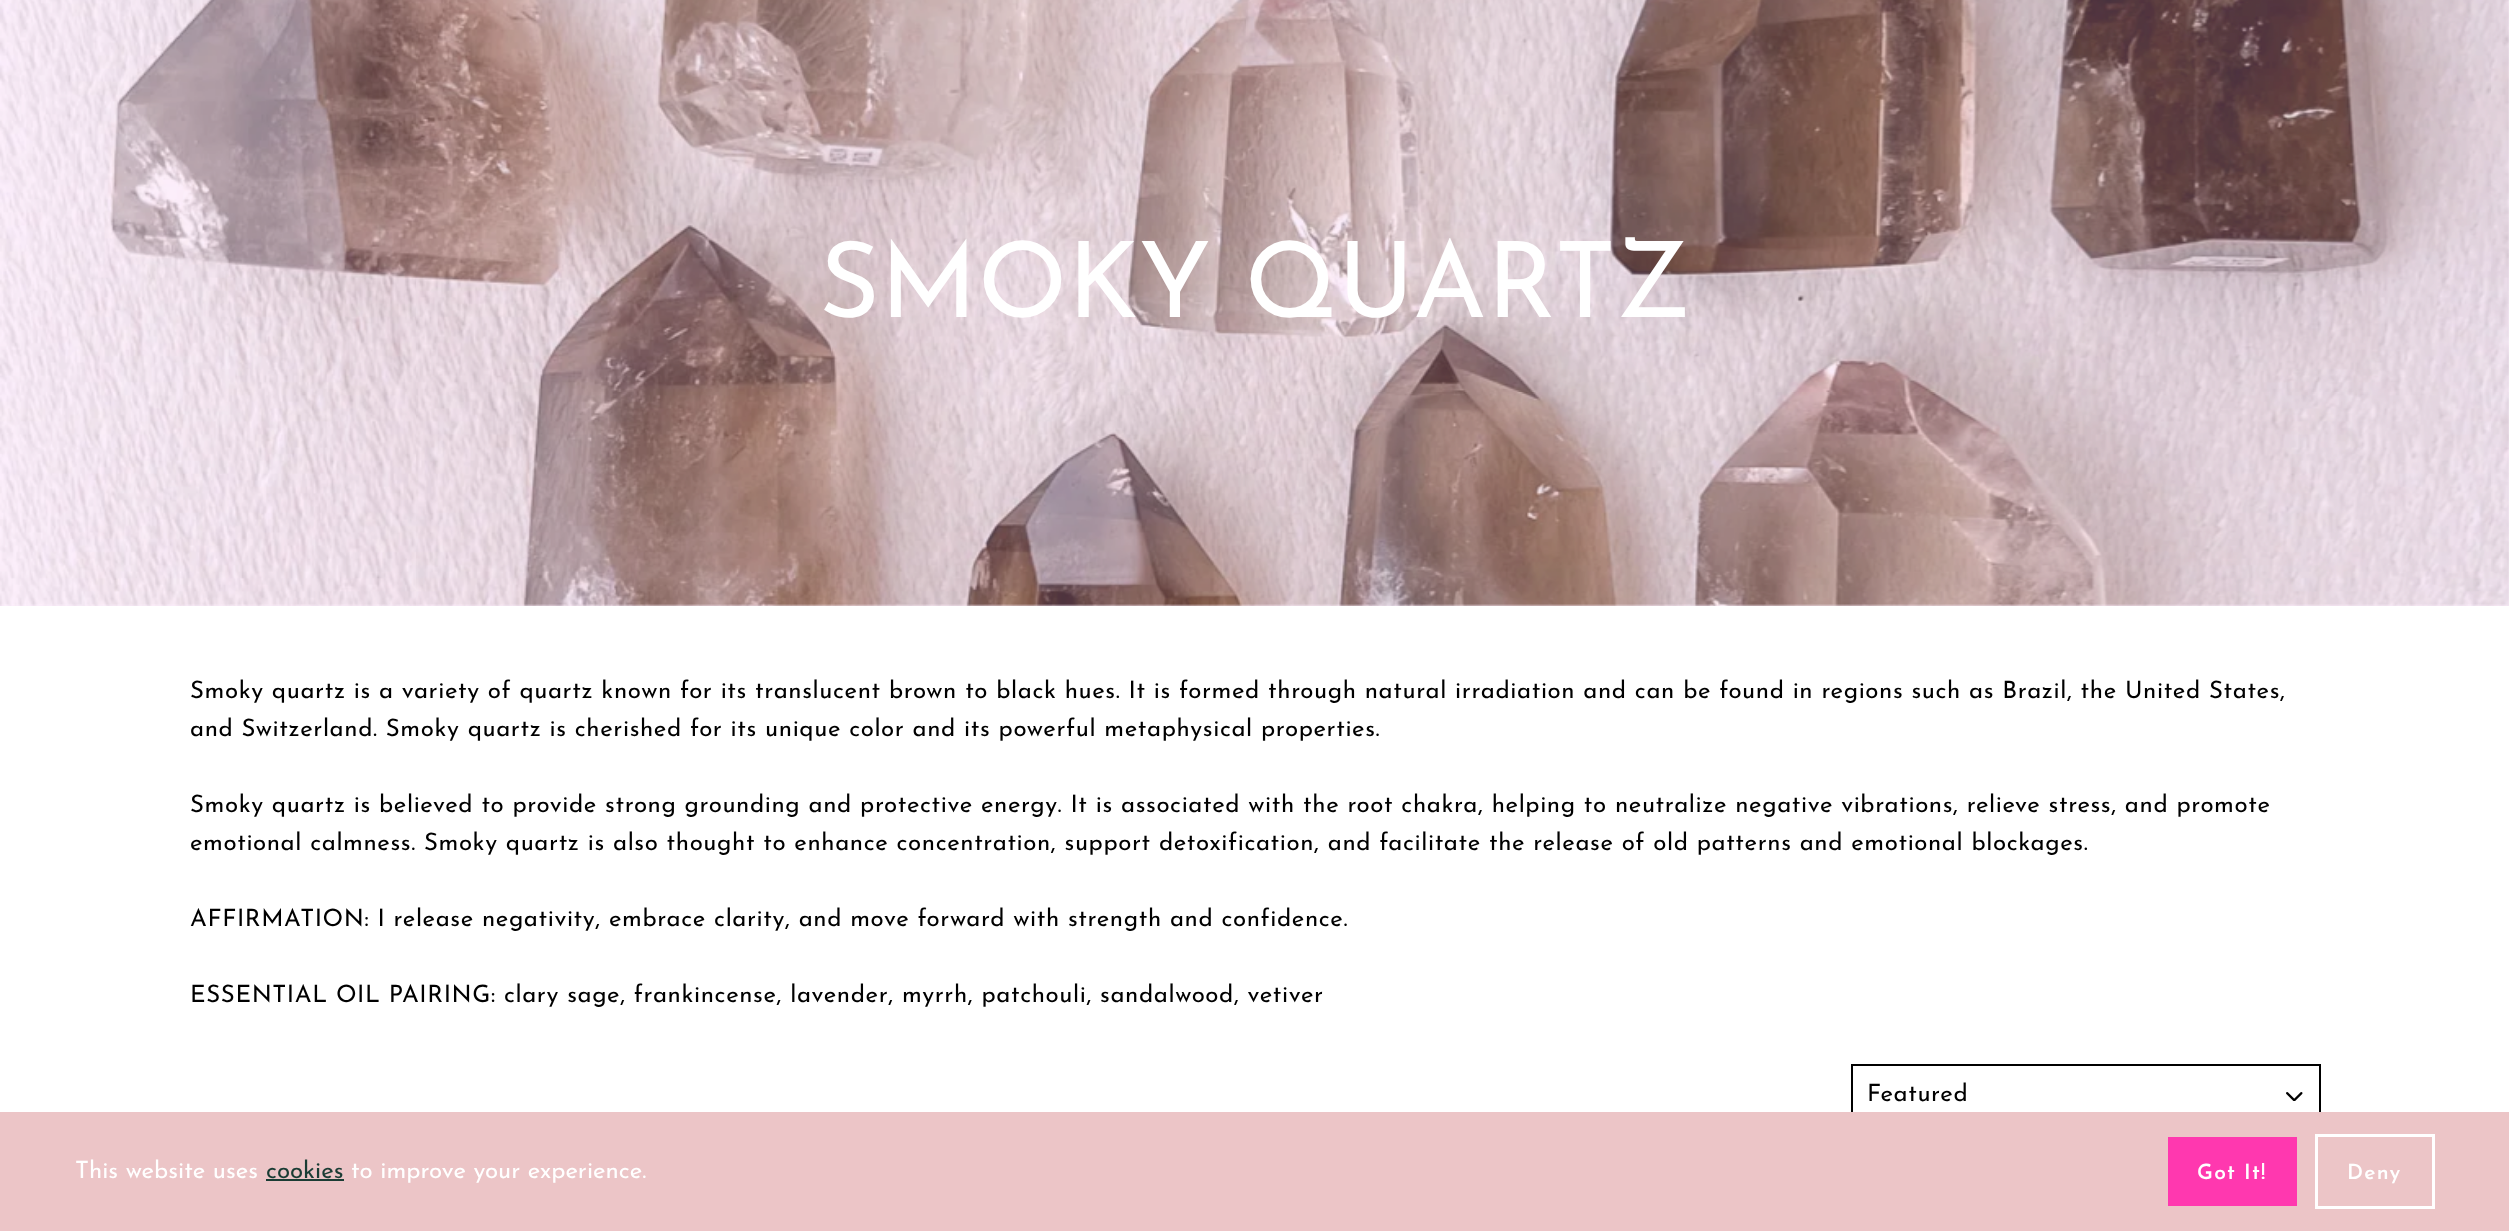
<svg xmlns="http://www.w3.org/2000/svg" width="2509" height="1231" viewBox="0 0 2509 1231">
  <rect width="100%" height="100%" fill="rgb(255,255,255)"/>
  <rect x="0" y="0" width="2509" height="606" fill="rgb(253,239,253)"/>
  <image x="0" y="0" width="2509" height="606" href="pic1.png"/>
  <text x="819" y="317" font-family="Josefin Sans" font-size="105" font-weight="100" fill="rgb(255,255,255)">SMOKY QUARTZ</text>
  <g font-family="Josefin Sans" font-size="24" font-weight="100" letter-spacing="0.6" fill="rgb(0,0,0)">
    <text>
      <tspan x="190" y="698">Smoky quartz is a variety of quartz known for its translucent brown to black hues. It is formed through natural irradiation and can be found in regions such as Brazil, the United States,</tspan>
      <tspan x="190" y="736">and Switzerland. Smoky quartz is cherished for its unique color and its powerful metaphysical properties.</tspan>
    </text>
    <text>
      <tspan x="190" y="812">Smoky quartz is believed to provide strong grounding and protective energy. It is associated with the root chakra, helping to neutralize negative vibrations, relieve stress, and promote</tspan>
      <tspan x="190" y="850">emotional calmness. Smoky quartz is also thought to enhance concentration, support detoxification, and facilitate the release of old patterns and emotional blockages.</tspan>
    </text>
    <text x="190" y="926">AFFIRMATION: I release negativity, embrace clarity, and move forward with strength and confidence.</text>
    <text x="190" y="1002">ESSENTIAL OIL PAIRING: clary sage, frankincense, lavender, myrrh, patchouli, sandalwood, vetiver</text>
  </g>
  <image x="2286" y="1092" width="17" height="9" href="pic2.png"/>
  <rect x="1852" y="1065" width="468" height="64" fill="none" stroke="rgb(0,0,0)" stroke-width="2"/>
  <text x="1867" y="1101" font-family="Josefin Sans" font-size="24" font-weight="100" letter-spacing="0.6" fill="rgb(0,0,0)">Featured</text>
  <rect x="0" y="1112" width="2509" height="119" fill="rgb(236,197,199)"/>
  <text x="75" y="1178" font-family="Josefin Sans" font-size="24" font-weight="100" fill="rgb(255,255,255)">This website uses</text>
  <text x="266" y="1178" font-family="Josefin Sans" font-size="24" font-weight="100" fill="rgb(26,60,52)">cookies</text>
  <rect x="266" y="1179" width="78" height="2" fill="rgb(26,60,52)"/>
  <text x="351" y="1178" font-family="Josefin Sans" font-size="24" font-weight="100" fill="rgb(255,255,255)">to improve your experience.</text>
  <rect x="2168" y="1137" width="129" height="69" fill="rgb(255,56,175)"/>
  <text x="2197" y="1179" font-family="Josefin Sans" font-size="21" font-weight="600" letter-spacing="1.25" fill="rgb(255,255,255)">Got It!</text>
  <rect x="2316.5" y="1135.5" width="117" height="72" fill="none" stroke="rgb(255,255,255)" stroke-width="3"/>
  <text x="2347" y="1179" font-family="Josefin Sans" font-size="21" font-weight="600" letter-spacing="1.25" fill="rgb(255,255,255)">Deny</text>
</svg>
